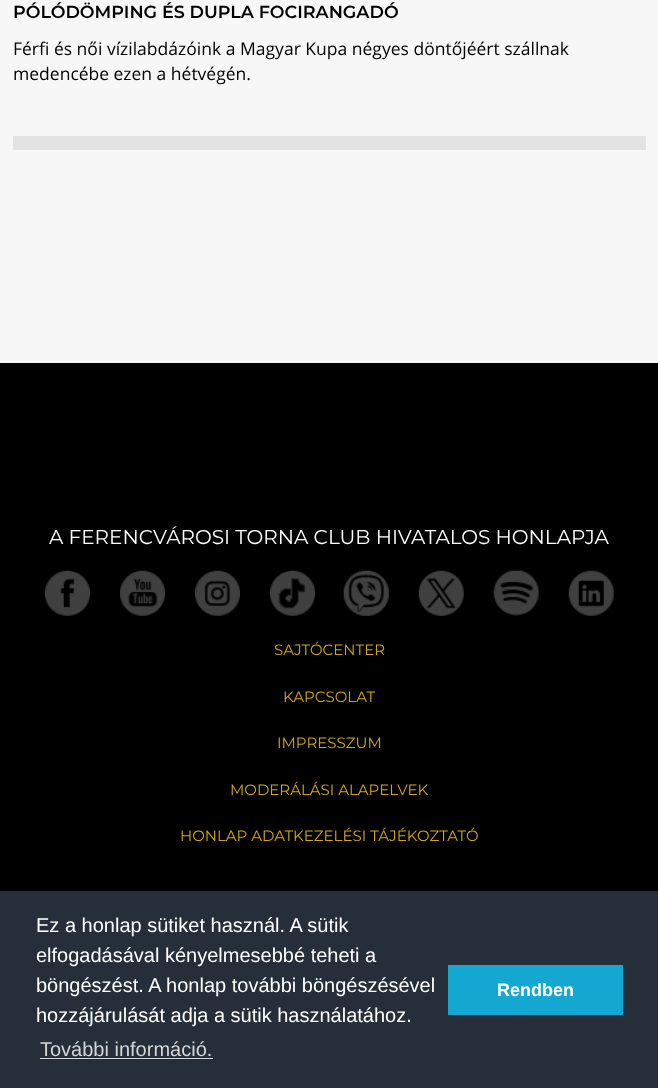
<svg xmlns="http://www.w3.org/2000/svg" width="658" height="1088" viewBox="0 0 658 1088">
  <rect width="100%" height="100%" fill="rgb(247,247,247)"/>
  <text x="13" y="18" font-family="Montserrat" font-size="17.5" font-weight="600" fill="rgb(0,0,0)">PÓLÓDÖMPING ÉS DUPLA FOCIRANGADÓ</text>
  <g font-family="Open Sans" font-size="17.5" fill="rgb(0,0,0)">
    <text>
      <tspan x="13" y="55">Férfi és női vízilabdázóink a Magyar Kupa négyes döntőjéért szállnak</tspan>
      <tspan x="13" y="80">medencébe ezen a hétvégén.</tspan>
    </text>
  </g>
  <rect x="13" y="136" width="633" height="14" fill="rgb(227,227,227)"/>
  <rect x="0" y="363" width="658" height="528" fill="rgb(0,0,0)"/>
  <text x="49" y="544" font-family="Montserrat" font-size="20" fill="rgb(255,255,255)">A FERENCVÁROSI TORNA CLUB HIVATALOS HONLAPJA</text>
  <image x="45" y="570" width="45" height="46" href="pic1.png"/>
  <image x="120" y="570" width="45" height="46" href="pic2.png"/>
  <image x="195" y="570" width="45" height="46" href="pic3.png"/>
  <image x="270" y="570" width="45" height="46" href="pic4.png"/>
  <image x="343" y="570" width="46" height="46" href="pic5.png"/>
  <image x="418" y="570" width="46" height="46" href="pic6.png"/>
  <image x="493" y="570" width="46" height="46" href="pic7.png"/>
  <image x="568" y="570" width="46" height="46" href="pic8.png"/>
  <g font-family="Montserrat" font-size="15" fill="rgb(211,164,22)">
    <text x="274" y="655">SAJTÓCENTER</text>
    <text x="283" y="702">KAPCSOLAT</text>
    <text x="277" y="748">IMPRESSZUM</text>
    <text x="230" y="795">MODERÁLÁSI ALAPELVEK</text>
    <text x="180" y="841">HONLAP ADATKEZELÉSI TÁJÉKOZTATÓ</text>
  </g>
  <rect x="0" y="891" width="658" height="197" fill="rgb(37,46,57)"/>
  <g font-family="Liberation Sans" font-size="20" fill="rgb(255,255,255)">
    <text>
      <tspan x="36" y="932">Ez a honlap sütiket használ. A sütik</tspan>
      <tspan x="36" y="962">elfogadásával kényelmesebbé teheti a</tspan>
      <tspan x="36" y="992">böngészést. A honlap további böngészésével</tspan>
      <tspan x="36" y="1022">hozzájárulását adja a sütik használatához.</tspan>
    </text>
  </g>
  <text x="40" y="1056" font-family="Liberation Sans" font-size="20" fill="rgb(211,213,215)">További információ.</text>
  <rect x="40" y="1058" width="173" height="1" fill="rgb(211,213,215)"/>
  <rect x="448" y="965" width="175" height="50" fill="rgb(20,167,208)"/>
  <text x="497" y="996" font-family="Liberation Sans" font-size="18" font-weight="bold" fill="rgb(255,255,255)">Rendben</text>
</svg>
